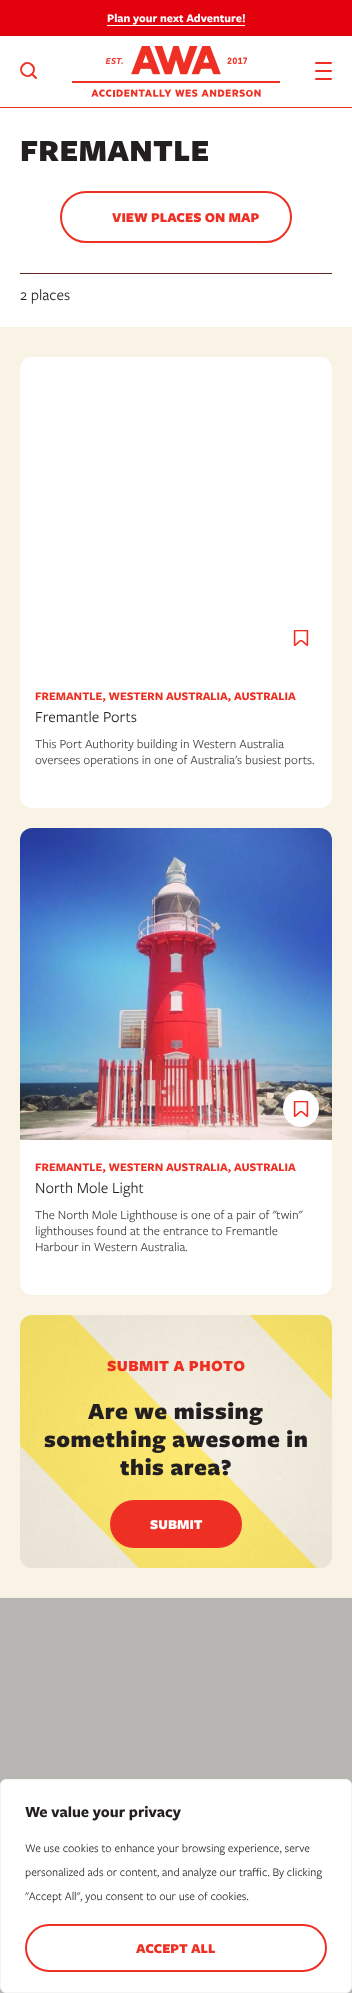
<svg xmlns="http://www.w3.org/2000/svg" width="352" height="1993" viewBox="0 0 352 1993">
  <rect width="100%" height="100%" fill="rgb(255,255,255)"/>
  <rect x="0" y="0" width="352" height="36" fill="rgb(226,1,13)"/>
  <text x="107" y="22" font-family="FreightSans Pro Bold" font-size="12" font-weight="bold" fill="rgb(255,255,255)">Plan your next Adventure!</text>
  <rect x="107" y="25" width="138" height="1" fill="rgb(255,255,255)"/>
  <rect x="0" y="107" width="352" height="1" fill="rgb(238,48,36)"/>
  <path d="M23 65C29 59 38 68 32 74C26 80 17 71 23 65Z" fill="none" stroke="rgb(238,48,36)" stroke-width="2"/>
  <path d="M36 78L33 75" fill="none" stroke="rgb(238,48,36)" stroke-width="2" stroke-linecap="round" stroke-linejoin="bevel"/>
  <image x="72" y="46" width="208" height="51" href="pic1.png"/>
  <rect x="315" y="62" width="17" height="2" rx="1" fill="rgb(238,48,36)"/>
  <rect x="315" y="70" width="17" height="2" rx="1" fill="rgb(238,48,36)"/>
  <rect x="315" y="78" width="17" height="2" rx="1" fill="rgb(238,48,36)"/>
  <rect x="0" y="327" width="352" height="1271" fill="rgb(248,243,228)"/>
  <rect x="20" y="273" width="312" height="1" fill="rgb(99,37,42)"/>
  <text x="20" y="161" font-family="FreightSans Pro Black" font-size="32" font-weight="900" letter-spacing="0.25" fill="rgb(35,31,32)">FREMANTLE</text>
  <rect x="61" y="192" width="230" height="50" rx="25" fill="none" stroke="rgb(238,48,36)" stroke-width="2"/>
  <text x="112" y="222" font-family="FreightSans Pro Black" font-size="14" font-weight="900" fill="rgb(238,48,36)">VIEW PLACES ON MAP</text>
  <text x="20" y="300" font-family="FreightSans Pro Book" font-size="16" fill="rgb(35,31,32)">2 places</text>
  <rect x="20" y="357" width="312" height="451" rx="12" fill="rgb(255,255,255)"/>
  <image x="293" y="630" width="16" height="16" href="pic2.png"/>
  <path d="M20 669H332V796C332 802.5 326.5 808 320 808H32C25.5 808 20 802.5 20 796Z" fill="rgb(255,255,255)"/>
  <text x="35" y="700" font-family="FreightSans Pro Bold" font-size="12" font-weight="bold" fill="rgb(238,48,36)">FREMANTLE, WESTERN AUSTRALIA, AUSTRALIA</text>
  <text x="35" y="722" font-family="FreightSans Pro Book" font-size="16" fill="rgb(35,31,32)">Fremantle Ports</text>
  <g font-family="FreightSans Pro Book" font-size="13" fill="rgb(62,66,64)">
    <text>
      <tspan x="35" y="748">This Port Authority building in Western Australia</tspan>
      <tspan x="35" y="764">oversees operations in one of Australia's busiest ports.</tspan>
    </text>
  </g>
  <image x="20" y="828" width="312" height="312" href="pic3.png"/>
  <rect x="283" y="1090" width="36" height="37" rx="18" fill="rgb(255,255,255)"/>
  <image x="293" y="1101" width="16" height="16" href="pic2.png"/>
  <path d="M20 1140H332V1283C332 1289.5 326.5 1295 320 1295H32C25.5 1295 20 1289.5 20 1283Z" fill="rgb(255,255,255)"/>
  <text x="35" y="1171" font-family="FreightSans Pro Bold" font-size="12" font-weight="bold" fill="rgb(238,48,36)">FREMANTLE, WESTERN AUSTRALIA, AUSTRALIA</text>
  <text x="35" y="1193" font-family="FreightSans Pro Book" font-size="16" fill="rgb(35,31,32)">North Mole Light</text>
  <g font-family="FreightSans Pro Book" font-size="13" fill="rgb(62,66,64)">
    <text>
      <tspan x="35" y="1219">The North Mole Lighthouse is one of a pair of "twin"</tspan>
      <tspan x="35" y="1235">lighthouses found at the entrance to Fremantle</tspan>
      <tspan x="35" y="1251">Harbour in Western Australia.</tspan>
    </text>
  </g>
  <image x="20" y="1315" width="312" height="253" href="pic4.png"/>
  <text x="107" y="1371" font-family="FreightSans Pro Black" font-size="16" font-weight="900" letter-spacing="0.4" fill="rgb(238,48,36)">SUBMIT A PHOTO</text>
  <g font-family="FreightSans Pro Black" font-size="24" font-weight="900" letter-spacing="0.5" fill="rgb(35,31,32)">
    <text x="88" y="1419">Are we missing</text>
    <text x="44" y="1447">something awesome in</text>
    <text x="120" y="1475">this area?</text>
  </g>
  <rect x="110" y="1500" width="132" height="48" rx="24" fill="rgb(238,48,36)"/>
  <text x="150" y="1529" font-family="FreightSans Pro Black" font-size="14" font-weight="900" fill="rgb(255,255,255)">SUBMIT</text>
  <rect x="0" y="1598" width="352" height="395" fill="rgb(183,182,179)"/>
  <rect x="0.5" y="1779.5" width="351" height="213" rx="5.5" fill="rgb(255,255,255)" stroke="rgb(244,244,244)"/>
  <text x="25" y="1817" font-family="FreightSans Pro Bold" font-size="16" font-weight="bold" fill="rgb(35,31,32)">We value your privacy</text>
  <g font-family="FreightSans Pro Book" font-size="12" fill="rgb(35,31,32)">
    <text x="25" y="1852">We use cookies to enhance your browsing experience, serve</text>
    <text x="25" y="1876">personalized ads or content, and analyze our traffic. By clicking</text>
    <text x="25" y="1900">"Accept All", you consent to our use of cookies.</text>
  </g>
  <rect x="26" y="1925" width="300" height="46" rx="23" fill="none" stroke="rgb(238,48,36)" stroke-width="2"/>
  <text x="136" y="1953" font-family="FreightSans Pro Black" font-size="14" font-weight="900" fill="rgb(238,48,36)">ACCEPT ALL</text>
</svg>
